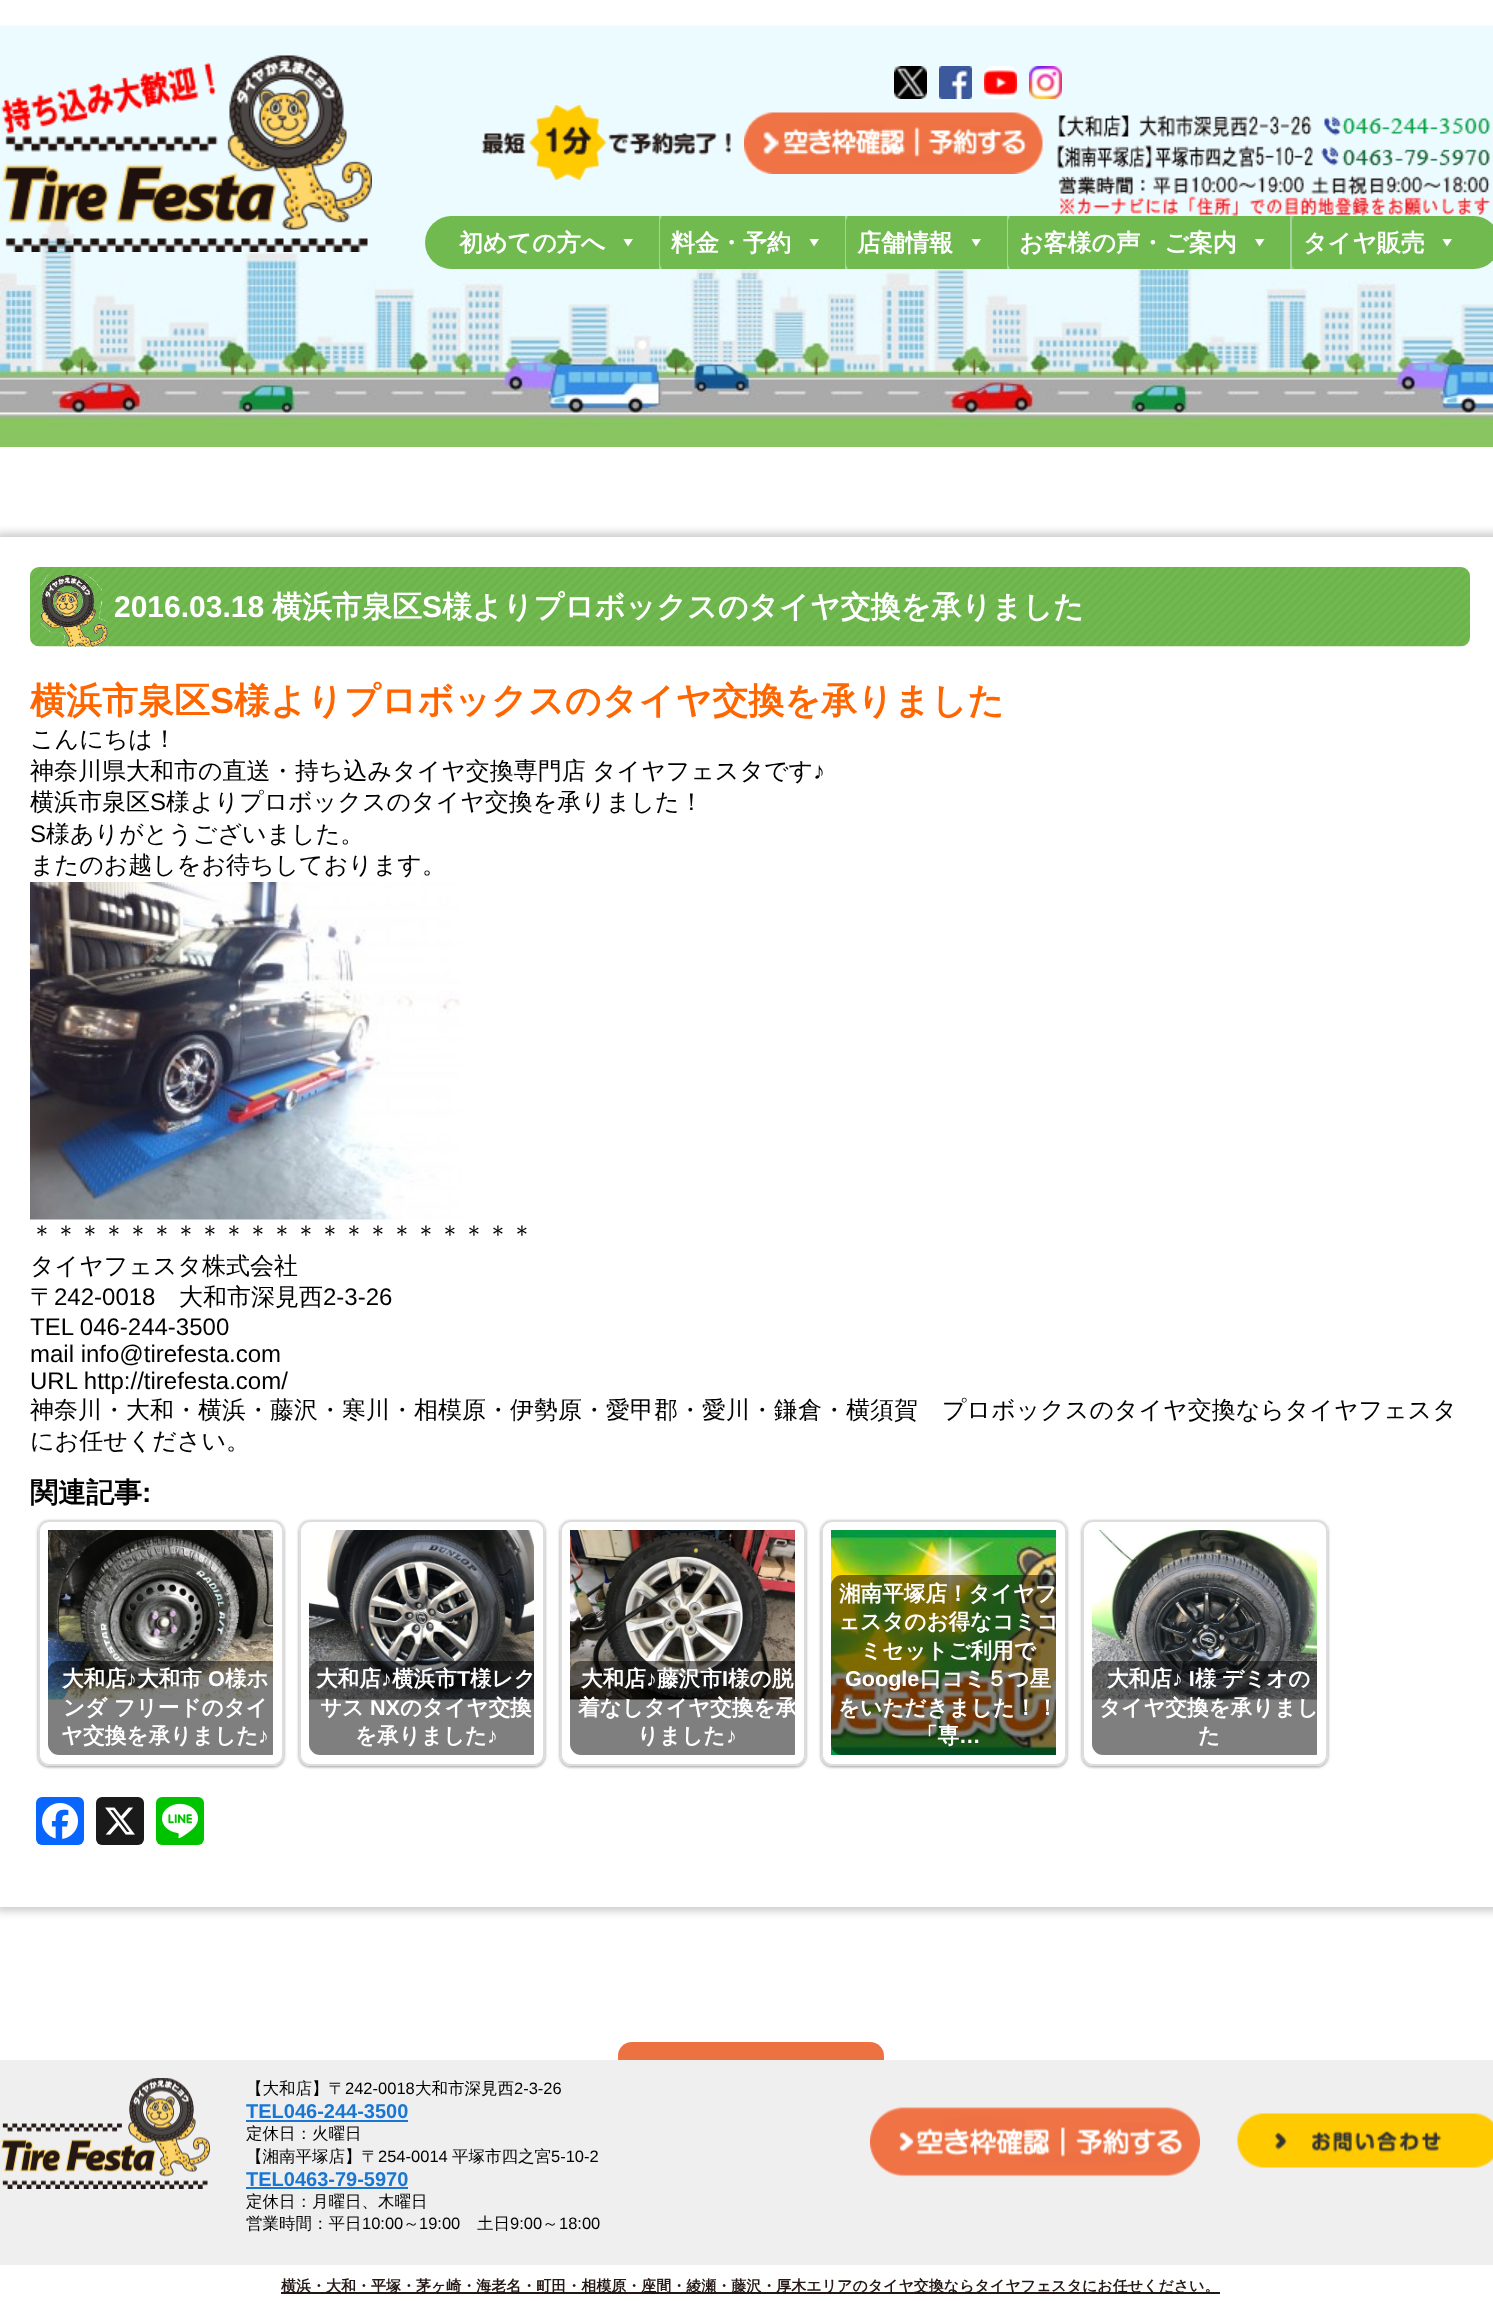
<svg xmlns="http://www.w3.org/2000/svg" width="1493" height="2301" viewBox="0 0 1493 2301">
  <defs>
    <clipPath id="clip1"><path d="M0 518H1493V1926H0ZM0 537H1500V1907H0Z" clip-rule="evenodd"/></clipPath>
    <clipPath id="clip2"><path d="M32 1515H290V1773H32ZM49 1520H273C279 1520 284 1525 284 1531V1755C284 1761 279 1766 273 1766H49C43 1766 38 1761 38 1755V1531C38 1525 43 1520 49 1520Z" clip-rule="evenodd"/></clipPath>
    <clipPath id="clip3"><rect x="48" y="1530" width="225" height="225"/></clipPath>
    <clipPath id="clip4"><path d="M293 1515H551V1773H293ZM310 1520H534C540 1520 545 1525 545 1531V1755C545 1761 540 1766 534 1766H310C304 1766 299 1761 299 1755V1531C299 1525 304 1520 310 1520Z" clip-rule="evenodd"/></clipPath>
    <clipPath id="clip5"><rect x="309" y="1530" width="225" height="225"/></clipPath>
    <clipPath id="clip6"><path d="M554 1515H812V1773H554ZM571 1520H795C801 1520 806 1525 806 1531V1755C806 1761 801 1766 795 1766H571C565 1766 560 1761 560 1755V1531C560 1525 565 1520 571 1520Z" clip-rule="evenodd"/></clipPath>
    <clipPath id="clip7"><rect x="570" y="1530" width="225" height="225"/></clipPath>
    <clipPath id="clip8"><path d="M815 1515H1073V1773H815ZM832 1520H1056C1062 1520 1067 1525 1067 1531V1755C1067 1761 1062 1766 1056 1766H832C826 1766 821 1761 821 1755V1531C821 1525 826 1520 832 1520Z" clip-rule="evenodd"/></clipPath>
    <clipPath id="clip9"><rect x="831" y="1530" width="225" height="225"/></clipPath>
    <clipPath id="clip10"><path d="M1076 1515H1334V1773H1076ZM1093 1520H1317C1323 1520 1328 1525 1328 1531V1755C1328 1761 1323 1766 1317 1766H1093C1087 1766 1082 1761 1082 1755V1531C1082 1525 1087 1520 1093 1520Z" clip-rule="evenodd"/></clipPath>
    <clipPath id="clip11"><rect x="1092" y="1530" width="225" height="225"/></clipPath>
  </defs>
  <rect width="100%" height="100%" fill="rgb(255,255,255)"/>
  <image x="0" y="25" width="1493" height="422" href="pic1.png"/>
  <image x="1" y="55" width="371" height="197" href="pic2.png"/>
  <image x="894" y="66" width="33" height="33" href="pic3.png"/>
  <image x="939" y="66" width="33" height="33" href="pic4.png"/>
  <image x="984" y="66" width="33" height="33" href="pic5.png"/>
  <image x="1029" y="66" width="33" height="33" href="pic6.png"/>
  <image x="481" y="105" width="250" height="75" href="pic7.png"/>
  <image x="744" y="112" width="299" height="62" href="pic8.png"/>
  <image x="1057" y="115" width="433" height="101" href="pic9.png"/>
  <rect x="425" y="216" width="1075" height="53" rx="26.5" fill="rgb(113,186,80)"/>
  <rect x="447" y="216" width="204" height="53" rx="5" fill="rgb(113,186,80)"/>
  <text x="459" y="251" font-family="WenQuanYi Zen Hei" font-size="24" font-weight="bold" fill="rgb(255,255,255)">初めての方へ</text>
  <path d="M633 239L628 246.5L623.5 239Z" fill="rgb(255,255,255)"/>
  <rect x="660" y="216" width="2" height="53" fill="rgb(141,200,115)"/>
  <rect x="659" y="216" width="2" height="53" fill="rgba(176,221,177,0.78)"/>
  <rect x="660" y="216" width="177" height="53" rx="5" fill="rgb(113,186,80)"/>
  <text x="671" y="251" font-family="WenQuanYi Zen Hei" font-size="24" font-weight="bold" fill="rgb(255,255,255)">料金・予約</text>
  <path d="M819 239L814 246.5L809.5 239Z" fill="rgb(255,255,255)"/>
  <rect x="846" y="216" width="2" height="53" fill="rgb(141,200,115)"/>
  <rect x="845" y="216" width="2" height="53" fill="rgba(176,221,177,0.78)"/>
  <rect x="846" y="216" width="153" height="53" rx="5" fill="rgb(113,186,80)"/>
  <text x="857" y="251" font-family="WenQuanYi Zen Hei" font-size="24" font-weight="bold" fill="rgb(255,255,255)">店舗情報</text>
  <path d="M981 239L976 246.5L971.5 239Z" fill="rgb(255,255,255)"/>
  <rect x="1008" y="216" width="2" height="53" fill="rgb(141,200,115)"/>
  <rect x="1007" y="216" width="2" height="53" fill="rgba(176,221,177,0.78)"/>
  <rect x="1008" y="216" width="275" height="53" rx="5" fill="rgb(113,186,80)"/>
  <text x="1019" y="251" font-family="WenQuanYi Zen Hei" font-size="24" font-weight="bold" fill="rgb(255,255,255)">お客様の声・ご案内</text>
  <path d="M1264.5 239L1259.5 246.5L1255 239Z" fill="rgb(255,255,255)"/>
  <rect x="1292" y="216" width="2" height="53" fill="rgb(141,200,115)"/>
  <rect x="1290" y="216" width="2" height="53" fill="rgb(162,213,156)"/>
  <rect x="1292" y="216" width="178" height="53" rx="5" fill="rgb(113,186,80)"/>
  <text x="1303" y="251" font-family="WenQuanYi Zen Hei" font-size="24" font-weight="bold" fill="rgb(255,255,255)">タイヤ販売</text>
  <path d="M1452 239L1447 246.5L1442.5 239Z" fill="rgb(255,255,255)"/>
  <g clip-path="url(#clip1)">
    <rect x="-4" y="533" width="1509" height="1378" fill="rgba(67,69,71,0.28)" filter="blur(4.5px)"/>
  </g>
  <image x="30" y="567" width="1440" height="80" href="pic10.png"/>
  <image x="40" y="574" width="68" height="73" href="pic11.png"/>
  <text x="114" y="617" font-family="Liberation Sans" font-size="30" font-weight="bold" fill="rgb(255,255,255)">2016.03.18</text>
  <text x="272" y="617" font-family="WenQuanYi Zen Hei" font-size="30" font-weight="bold" fill="rgb(255,255,255)">横浜市泉区</text>
  <text x="422" y="617" font-family="Liberation Sans" font-size="30" font-weight="bold" fill="rgb(255,255,255)">S</text>
  <text x="442" y="617" font-family="WenQuanYi Zen Hei" font-size="30" font-weight="bold" fill="rgb(255,255,255)">様よりプロボックスのタイヤ交換を承りました</text>
  <text x="30" y="713" font-family="WenQuanYi Zen Hei" font-size="36" font-weight="bold" fill="rgb(255,102,0)">横浜市泉区</text>
  <text x="210" y="713" font-family="Liberation Sans" font-size="36" font-weight="bold" fill="rgb(255,102,0)">S</text>
  <text x="234" y="713" font-family="WenQuanYi Zen Hei" font-size="36" font-weight="bold" fill="rgb(255,102,0)">様よりプロボックスのタイヤ交換を承りました</text>
  <g font-family="WenQuanYi Zen Hei" font-size="24" font-weight="500" fill="rgb(0,0,0)">
    <text>
      <tspan x="30" y="747">こんにちは！</tspan>
      <tspan x="30" y="779">神奈川県大和市の直送・</tspan>
    </text>
    <text x="295" y="779" word-spacing="-1">持ち込みタイヤ交換専門店 タイヤフェスタです</text>
  </g>
  <text x="813" y="779" font-family="Liberation Sans" font-size="24" fill="rgb(0,0,0)">♪</text>
  <text x="30" y="810" font-family="WenQuanYi Zen Hei" font-size="24" font-weight="500" fill="rgb(0,0,0)">横浜市泉区</text>
  <text x="150" y="810" font-family="Liberation Sans" font-size="24" fill="rgb(0,0,0)">S</text>
  <text x="166" y="810" font-family="WenQuanYi Zen Hei" font-size="24" font-weight="500" fill="rgb(0,0,0)">様よりプロボックスのタイヤ交換を承りました！</text>
  <text x="30" y="842" font-family="Liberation Sans" font-size="24" fill="rgb(0,0,0)">S</text>
  <g font-family="WenQuanYi Zen Hei" font-size="24" font-weight="500" fill="rgb(0,0,0)">
    <text x="46" y="842">様ありがとうございました。</text>
    <text x="30" y="873">またのお越しをお待ちしております。</text>
  </g>
  <image x="30" y="882" width="431" height="338" href="pic12.png"/>
  <g font-family="WenQuanYi Zen Hei" font-size="24" font-weight="500" fill="rgb(0,0,0)">
    <text>
      <tspan x="30" y="1242">＊＊＊＊＊＊＊＊＊＊＊＊＊＊＊＊＊＊＊＊＊</tspan>
      <tspan x="30" y="1274">タイヤフェスタ株式会社</tspan>
      <tspan x="30" y="1305">〒</tspan>
    </text>
  </g>
  <text x="54" y="1305" font-family="Liberation Sans" font-size="24" fill="rgb(0,0,0)">242-0018</text>
  <text x="179" y="1305" font-family="WenQuanYi Zen Hei" font-size="24" font-weight="500" fill="rgb(0,0,0)">大和市深見西</text>
  <g font-family="Liberation Sans" font-size="24" fill="rgb(0,0,0)">
    <text x="323" y="1305">2-3-26</text>
    <text>
      <tspan x="30" y="1335">TEL 046-244-3500</tspan>
      <tspan x="30" y="1362">mail info@tirefesta.com</tspan>
      <tspan x="30" y="1389">URL http://tirefesta.com/</tspan>
    </text>
  </g>
  <g font-family="WenQuanYi Zen Hei" font-size="24" font-weight="500" fill="rgb(0,0,0)">
    <text>
      <tspan x="30" y="1418">神奈川・大和・横浜・藤沢・寒川・相模原・伊勢原・愛甲郡・愛川・鎌倉・横須賀　プロボックスのタイヤ交換ならタイヤフェスタ</tspan>
      <tspan x="30" y="1449">にお任せください。</tspan>
    </text>
  </g>
  <text x="30" y="1502" font-family="WenQuanYi Zen Hei" font-size="28" font-weight="bold" fill="rgb(0,0,0)">関連記事</text>
  <text x="142" y="1502" font-family="Liberation Sans" font-size="28" font-weight="bold" fill="rgb(0,0,0)">:</text>
  <g clip-path="url(#clip2)">
    <rect x="38" y="1521" width="246" height="246" rx="11" fill="rgba(0,0,0,0.4)" filter="blur(1.5px)"/>
  </g>
  <rect x="39" y="1521" width="244" height="244" rx="10" fill="none" stroke="rgb(221,221,221)" stroke-width="2"/>
  <image x="48" y="1530" width="225" height="170" href="pic13.png"/>
  <g clip-path="url(#clip3)">
    <rect x="48" y="1661" width="234" height="94" rx="11" fill="rgba(0,0,0,0.5)"/>
  </g>
  <text x="62" y="1686" font-family="WenQuanYi Zen Hei" font-size="21.6" font-weight="bold" fill="rgb(255,255,255)">大和店</text>
  <text x="126" y="1686" font-family="Liberation Sans" font-size="21.6" font-weight="bold" fill="rgb(255,255,255)">♪</text>
  <text x="137" y="1686" font-family="WenQuanYi Zen Hei" font-size="21.6" font-weight="bold" fill="rgb(255,255,255)">大和市</text>
  <text x="208" y="1686" font-family="Liberation Sans" font-size="21.6" font-weight="bold" fill="rgb(255,255,255)">O</text>
  <g font-family="WenQuanYi Zen Hei" font-size="21.6" font-weight="bold" fill="rgb(255,255,255)">
    <text x="225" y="1686">様ホ</text>
    <text x="63" y="1715">ンダ フリードのタイ</text>
    <text x="61" y="1743">ヤ交換を承りました</text>
  </g>
  <text x="258" y="1743" font-family="Liberation Sans" font-size="21.6" font-weight="bold" fill="rgb(255,255,255)">♪</text>
  <g clip-path="url(#clip4)">
    <rect x="299" y="1521" width="246" height="246" rx="11" fill="rgba(0,0,0,0.4)" filter="blur(1.5px)"/>
  </g>
  <rect x="300" y="1521" width="244" height="244" rx="10" fill="none" stroke="rgb(221,221,221)" stroke-width="2"/>
  <image x="309" y="1530" width="225" height="170" href="pic14.png"/>
  <g clip-path="url(#clip5)">
    <rect x="309" y="1661" width="234" height="94" rx="11" fill="rgba(0,0,0,0.5)"/>
  </g>
  <text x="316" y="1686" font-family="WenQuanYi Zen Hei" font-size="21.6" font-weight="bold" fill="rgb(255,255,255)">大和店</text>
  <text x="381" y="1686" font-family="Liberation Sans" font-size="21.6" font-weight="bold" fill="rgb(255,255,255)">♪</text>
  <text x="392" y="1686" font-family="WenQuanYi Zen Hei" font-size="21.6" font-weight="bold" fill="rgb(255,255,255)">横浜市</text>
  <text x="457" y="1686" font-family="Liberation Sans" font-size="21.6" font-weight="bold" fill="rgb(255,255,255)">T</text>
  <g font-family="WenQuanYi Zen Hei" font-size="21.6" font-weight="bold" fill="rgb(255,255,255)">
    <text x="470" y="1686">様レク</text>
    <text x="320" y="1715">サス</text>
  </g>
  <text x="370" y="1715" font-family="Liberation Sans" font-size="21.6" font-weight="bold" fill="rgb(255,255,255)">NX</text>
  <g font-family="WenQuanYi Zen Hei" font-size="21.6" font-weight="bold" fill="rgb(255,255,255)">
    <text x="400" y="1715">のタイヤ交換</text>
    <text x="355" y="1743">を承りました</text>
  </g>
  <text x="487" y="1743" font-family="Liberation Sans" font-size="21.6" font-weight="bold" fill="rgb(255,255,255)">♪</text>
  <g clip-path="url(#clip6)">
    <rect x="560" y="1521" width="246" height="246" rx="11" fill="rgba(0,0,0,0.4)" filter="blur(1.5px)"/>
  </g>
  <rect x="561" y="1521" width="244" height="244" rx="10" fill="none" stroke="rgb(221,221,221)" stroke-width="2"/>
  <image x="570" y="1530" width="225" height="170" href="pic15.png"/>
  <g clip-path="url(#clip7)">
    <rect x="570" y="1661" width="234" height="94" rx="11" fill="rgba(0,0,0,0.5)"/>
  </g>
  <text x="581" y="1686" font-family="WenQuanYi Zen Hei" font-size="21.6" font-weight="bold" fill="rgb(255,255,255)">大和店</text>
  <text x="646" y="1686" font-family="Liberation Sans" font-size="21.6" font-weight="bold" fill="rgb(255,255,255)">♪</text>
  <text x="657" y="1686" font-family="WenQuanYi Zen Hei" font-size="21.6" font-weight="bold" fill="rgb(255,255,255)">藤沢市</text>
  <text x="722" y="1686" font-family="Liberation Sans" font-size="21.6" font-weight="bold" fill="rgb(255,255,255)">I</text>
  <g font-family="WenQuanYi Zen Hei" font-size="21.6" font-weight="bold" fill="rgb(255,255,255)">
    <text x="728" y="1686">様の脱</text>
    <text x="578" y="1715">着なしタイヤ交換を承</text>
    <text x="637" y="1743">りました</text>
  </g>
  <text x="726" y="1743" font-family="Liberation Sans" font-size="21.6" font-weight="bold" fill="rgb(255,255,255)">♪</text>
  <g clip-path="url(#clip8)">
    <rect x="821" y="1521" width="246" height="246" rx="11" fill="rgba(0,0,0,0.4)" filter="blur(1.5px)"/>
  </g>
  <rect x="822" y="1521" width="244" height="244" rx="10" fill="none" stroke="rgb(221,221,221)" stroke-width="2"/>
  <image x="831" y="1530" width="225" height="225" href="pic16.png"/>
  <g clip-path="url(#clip9)">
    <rect x="831" y="1575" width="234" height="180" rx="11" fill="rgba(0,0,0,0.5)"/>
  </g>
  <g font-family="WenQuanYi Zen Hei" font-size="21.6" font-weight="bold" fill="rgb(255,255,255)">
    <text x="839" y="1601">湘南平塚店！タイヤフ</text>
    <text x="838" y="1629">ェスタのお得なコミコ</text>
    <text x="860" y="1658">ミセットご利用で</text>
  </g>
  <text x="845" y="1686" font-family="Liberation Sans" font-size="21.6" font-weight="bold" fill="rgb(255,255,255)">Google</text>
  <g font-family="WenQuanYi Zen Hei" font-size="21.6" font-weight="bold" fill="rgb(255,255,255)">
    <text x="920" y="1686">口コミ５つ星</text>
    <text x="838" y="1715">をいただきました！！</text>
    <text x="916" y="1743">「専</text>
  </g>
  <text x="959" y="1743" font-family="Liberation Sans" font-size="21.6" font-weight="bold" fill="rgb(255,255,255)">…</text>
  <g clip-path="url(#clip10)">
    <rect x="1082" y="1521" width="246" height="246" rx="11" fill="rgba(0,0,0,0.4)" filter="blur(1.5px)"/>
  </g>
  <rect x="1083" y="1521" width="244" height="244" rx="10" fill="none" stroke="rgb(221,221,221)" stroke-width="2"/>
  <image x="1092" y="1530" width="225" height="170" href="pic17.png"/>
  <g clip-path="url(#clip11)">
    <rect x="1092" y="1661" width="234" height="94" rx="11" fill="rgba(0,0,0,0.5)"/>
  </g>
  <text x="1107" y="1686" font-family="WenQuanYi Zen Hei" font-size="21.6" font-weight="bold" fill="rgb(255,255,255)">大和店</text>
  <text x="1172" y="1686" font-family="Liberation Sans" font-size="21.6" font-weight="bold" fill="rgb(255,255,255)">♪ I</text>
  <g font-family="WenQuanYi Zen Hei" font-size="21.6" font-weight="bold" fill="rgb(255,255,255)">
    <text x="1195" y="1686">様</text>
    <text x="1222" y="1686">デミオの</text>
    <text x="1099" y="1715">タイヤ交換を承りまし</text>
    <text x="1198" y="1743">た</text>
  </g>
  <rect x="36" y="1797" width="48" height="48" rx="6" fill="rgb(8,102,255)"/>
  <image x="42" y="1803" width="36" height="36" href="pic18.png"/>
  <rect x="96" y="1797" width="48" height="48" rx="6" fill="rgb(26,26,26)"/>
  <image x="105" y="1807" width="30" height="28" href="pic19.png"/>
  <rect x="156" y="1797" width="48" height="48" rx="6" fill="rgb(0,195,0)"/>
  <image x="162" y="1803" width="36" height="36" href="pic20.png"/>
  <rect x="618" y="2042" width="266" height="63" rx="14" fill="rgb(236,114,66)"/>
  <rect x="0" y="2060" width="1493" height="205" fill="rgb(239,239,239)"/>
  <image x="1" y="2078" width="209" height="111" href="pic21.png"/>
  <text x="246" y="2094" font-family="WenQuanYi Zen Hei" font-size="16.5" font-weight="500" fill="rgb(0,0,0)">【大和店】〒</text>
  <text x="345" y="2094" font-family="Liberation Sans" font-size="16.5" fill="rgb(0,0,0)">242-0018</text>
  <text x="415" y="2094" font-family="WenQuanYi Zen Hei" font-size="16.5" font-weight="500" fill="rgb(0,0,0)">大和市深見西</text>
  <text x="514" y="2094" font-family="Liberation Sans" font-size="16.5" fill="rgb(0,0,0)">2-3-26</text>
  <text x="246" y="2118" font-family="Liberation Sans" font-size="20" font-weight="bold" fill="rgb(25,118,210)">TEL046-244-3500</text>
  <rect x="246" y="2120" width="162" height="2" fill="rgb(25,118,210)"/>
  <g font-family="WenQuanYi Zen Hei" font-size="16.5" font-weight="500" fill="rgb(0,0,0)">
    <text>
      <tspan x="246" y="2139">定休日：火曜日</tspan>
      <tspan x="246" y="2162">【湘南平塚店】〒</tspan>
    </text>
  </g>
  <text x="378" y="2162" font-family="Liberation Sans" font-size="16.5" fill="rgb(0,0,0)">254-0014</text>
  <text x="452" y="2162" font-family="WenQuanYi Zen Hei" font-size="16.5" font-weight="500" fill="rgb(0,0,0)">平塚市四之宮</text>
  <text x="551" y="2162" font-family="Liberation Sans" font-size="16.5" fill="rgb(0,0,0)">5-10-2</text>
  <text x="246" y="2186" font-family="Liberation Sans" font-size="20" font-weight="bold" fill="rgb(25,118,210)">TEL0463-79-5970</text>
  <rect x="246" y="2187" width="162" height="2" fill="rgb(25,118,210)"/>
  <g font-family="WenQuanYi Zen Hei" font-size="16.5" font-weight="500" fill="rgb(0,0,0)">
    <text>
      <tspan x="246" y="2207">定休日：月曜日、木曜日</tspan>
      <tspan x="246" y="2229">営業時間：平日</tspan>
    </text>
  </g>
  <text x="362" y="2229" font-family="Liberation Sans" font-size="16.5" fill="rgb(0,0,0)">10:00</text>
  <text x="403" y="2229" font-family="WenQuanYi Zen Hei" font-size="16.5" font-weight="500" fill="rgb(0,0,0)">～</text>
  <text x="419" y="2229" font-family="Liberation Sans" font-size="16.5" fill="rgb(0,0,0)">19:00</text>
  <text x="477" y="2229" font-family="WenQuanYi Zen Hei" font-size="16.5" font-weight="500" fill="rgb(0,0,0)">土日</text>
  <text x="510" y="2229" font-family="Liberation Sans" font-size="16.5" fill="rgb(0,0,0)">9:00</text>
  <text x="542" y="2229" font-family="WenQuanYi Zen Hei" font-size="16.5" font-weight="500" fill="rgb(0,0,0)">～</text>
  <text x="559" y="2229" font-family="Liberation Sans" font-size="16.5" fill="rgb(0,0,0)">18:00</text>
  <image x="870" y="2107" width="330" height="70" href="pic22.png"/>
  <image x="1237" y="2113" width="256" height="55" href="pic23.png"/>
  <rect x="281" y="2292" width="939" height="2" fill="rgb(35,24,21)"/>
  <text x="281" y="2291" font-family="WenQuanYi Zen Hei" font-size="15" font-weight="bold" fill="rgb(35,24,21)">横浜・大和・平塚・茅ヶ崎・海老名・町田・相模原・座間・綾瀬・藤沢・厚木エリアのタイヤ交換ならタイヤフェスタにお任せください。</text>
</svg>
